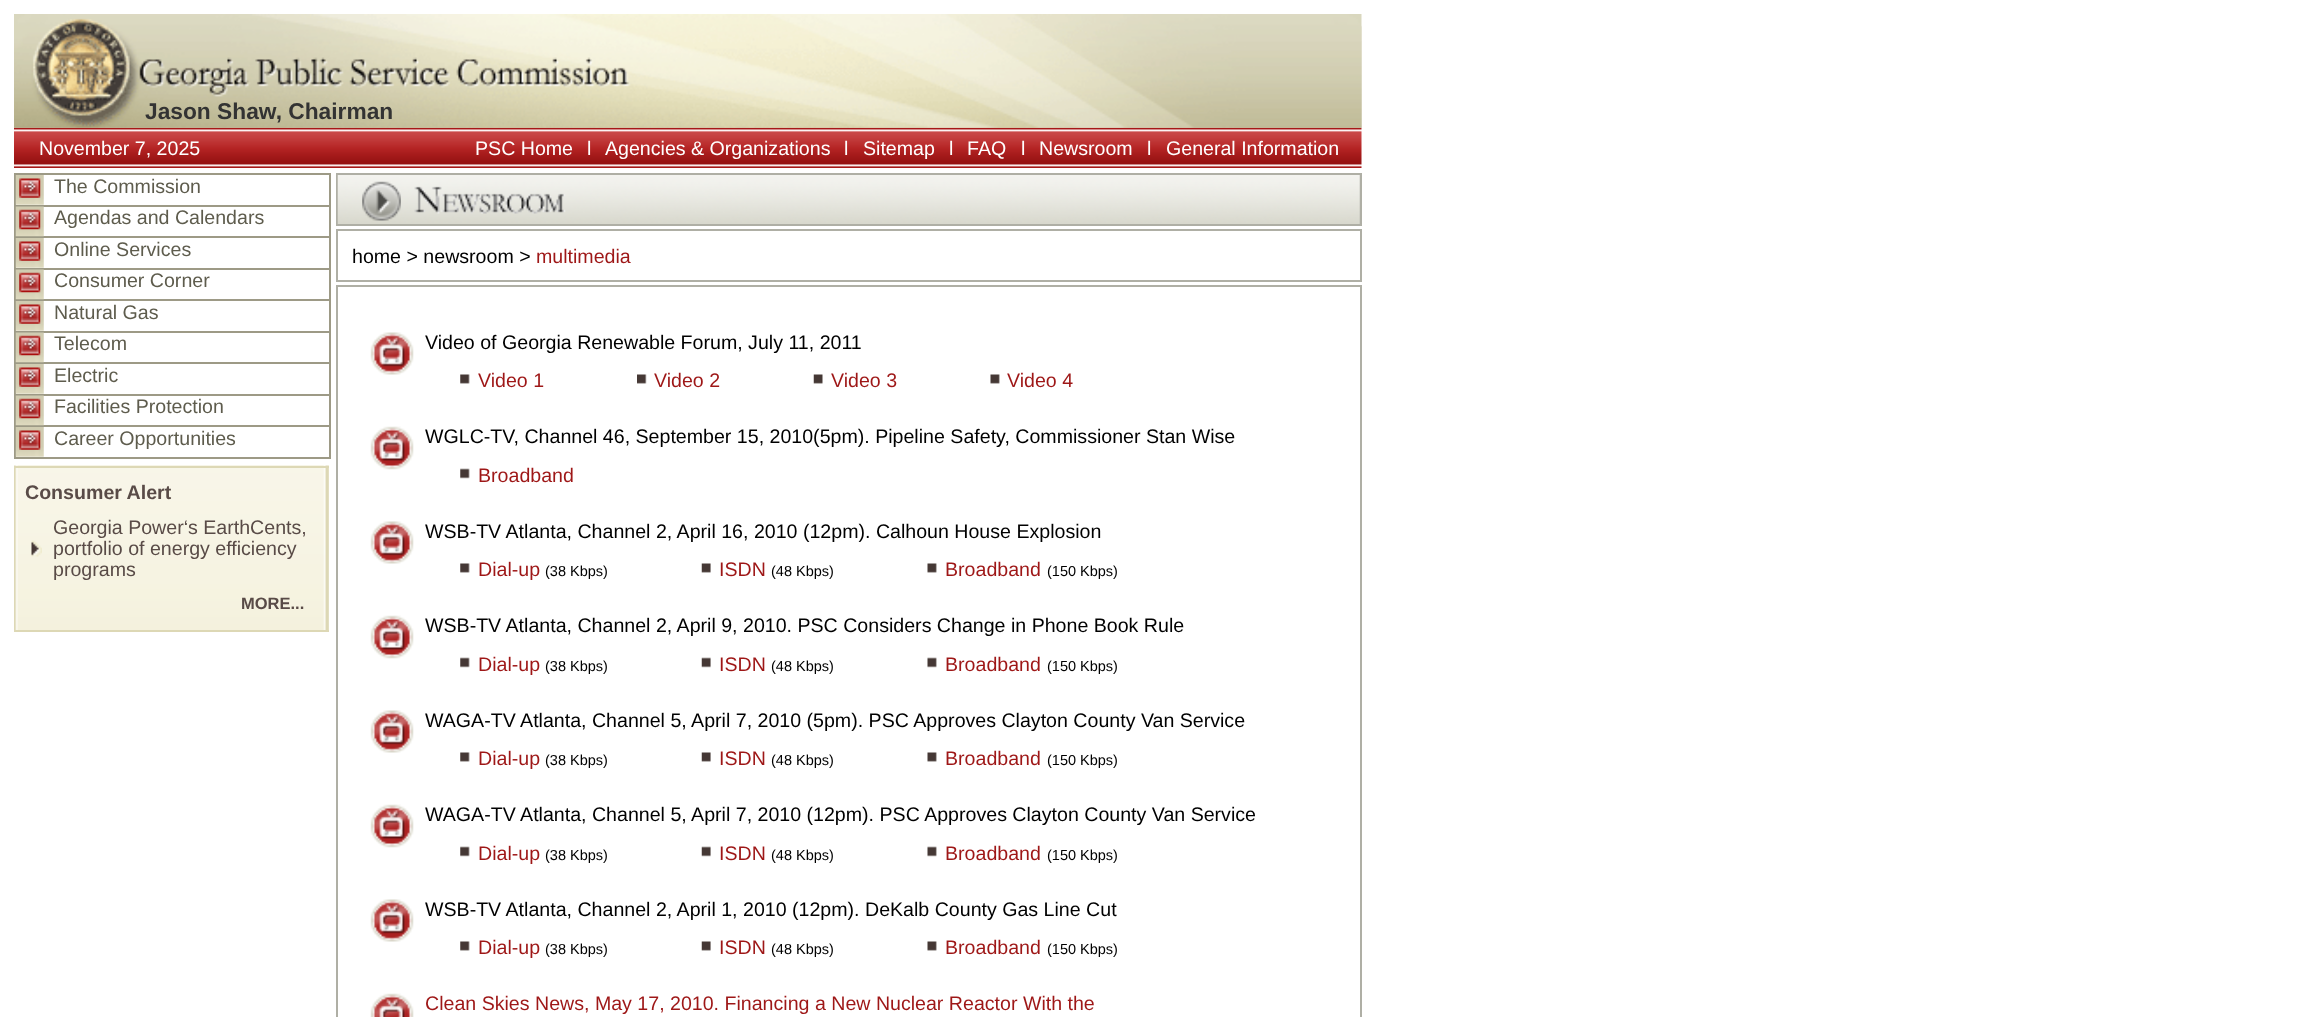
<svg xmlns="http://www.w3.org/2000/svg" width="2324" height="1017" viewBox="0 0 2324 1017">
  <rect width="100%" height="100%" fill="rgb(255,255,255)"/>
  <image x="14" y="14" width="1348" height="114" href="pic1.png"/>
  <image x="14" y="127" width="1348" height="41" href="pic3.png"/>
  <image x="14" y="14" width="1348" height="114" href="pic2.png"/>
  <text x="145" y="119" font-family="Liberation Sans" font-size="22.75" font-weight="bold" fill="rgb(51,51,51)">Jason Shaw, Chairman</text>
  <g font-family="Liberation Sans" font-size="19.6" fill="rgb(255,255,255)">
    <text x="39" y="155">November 7, 2025</text>
    <text x="475" y="155">PSC Home</text>
    <text x="587" y="155">l</text>
    <text x="605" y="155">Agencies &amp; Organizations</text>
    <text x="844" y="155">l</text>
    <text x="863" y="155">Sitemap</text>
    <text x="949" y="155">l</text>
    <text x="967" y="155">FAQ</text>
    <text x="1021" y="155">l</text>
    <text x="1039" y="155">Newsroom</text>
    <text x="1147" y="155">l</text>
    <text x="1166" y="155">General Information</text>
  </g>
  <rect x="14" y="173" width="317" height="286" fill="rgb(157,154,134)"/>
  <rect x="16" y="175" width="313" height="30" fill="rgb(255,255,255)"/>
  <image x="15" y="175" width="29" height="30" href="pic4.png"/>
  <image x="19" y="178" width="22" height="20" href="pic5.png"/>
  <text x="54" y="193" font-family="Liberation Sans" font-size="19.6" fill="rgb(94,92,77)">The Commission</text>
  <rect x="43" y="207" width="286" height="29" fill="rgb(255,255,255)"/>
  <image x="15" y="206" width="29" height="31" href="pic6.png"/>
  <image x="19" y="209" width="22" height="21" href="pic7.png"/>
  <text x="54" y="224" font-family="Liberation Sans" font-size="19.6" fill="rgb(94,92,77)">Agendas and Calendars</text>
  <rect x="16" y="238" width="313" height="30" fill="rgb(255,255,255)"/>
  <image x="15" y="238" width="29" height="30" href="pic4.png"/>
  <image x="19" y="241" width="22" height="20" href="pic5.png"/>
  <text x="54" y="256" font-family="Liberation Sans" font-size="19.6" fill="rgb(94,92,77)">Online Services</text>
  <rect x="43" y="270" width="286" height="29" fill="rgb(255,255,255)"/>
  <image x="15" y="269" width="29" height="31" href="pic8.png"/>
  <image x="19" y="272" width="22" height="21" href="pic9.png"/>
  <text x="54" y="287" font-family="Liberation Sans" font-size="19.6" fill="rgb(94,92,77)">Consumer Corner</text>
  <rect x="16" y="301" width="313" height="30" fill="rgb(255,255,255)"/>
  <image x="15" y="301" width="29" height="30" href="pic4.png"/>
  <image x="19" y="304" width="22" height="20" href="pic5.png"/>
  <text x="54" y="319" font-family="Liberation Sans" font-size="19.6" fill="rgb(94,92,77)">Natural Gas</text>
  <rect x="43" y="333" width="286" height="29" fill="rgb(255,255,255)"/>
  <image x="15" y="332" width="29" height="31" href="pic8.png"/>
  <image x="19" y="335" width="22" height="21" href="pic9.png"/>
  <text x="54" y="350" font-family="Liberation Sans" font-size="19.6" fill="rgb(94,92,77)">Telecom</text>
  <rect x="16" y="364" width="313" height="30" fill="rgb(255,255,255)"/>
  <image x="15" y="364" width="29" height="30" href="pic4.png"/>
  <image x="19" y="367" width="22" height="20" href="pic5.png"/>
  <text x="54" y="382" font-family="Liberation Sans" font-size="19.6" fill="rgb(94,92,77)">Electric</text>
  <rect x="43" y="396" width="286" height="29" fill="rgb(255,255,255)"/>
  <image x="15" y="395" width="29" height="31" href="pic8.png"/>
  <image x="19" y="398" width="22" height="21" href="pic9.png"/>
  <text x="54" y="413" font-family="Liberation Sans" font-size="19.6" fill="rgb(94,92,77)">Facilities Protection</text>
  <rect x="16" y="427" width="313" height="30" fill="rgb(255,255,255)"/>
  <image x="15" y="427" width="29" height="30" href="pic4.png"/>
  <image x="19" y="430" width="22" height="20" href="pic5.png"/>
  <text x="54" y="445" font-family="Liberation Sans" font-size="19.6" fill="rgb(94,92,77)">Career Opportunities</text>
  <image x="14" y="465" width="315" height="165" href="pic10.png"/>
  <rect x="14" y="466" width="315" height="2" fill="rgb(221,216,181)"/>
  <rect x="14" y="630" width="315" height="2" fill="rgb(221,216,181)"/>
  <text x="25" y="499" font-family="Liberation Sans" font-size="19.6" font-weight="bold" fill="rgb(89,75,71)">Consumer Alert</text>
  <image x="31" y="540" width="11" height="17" href="pic11.png"/>
  <g font-family="Liberation Sans" font-size="19.6" fill="rgb(89,75,71)">
    <text>
      <tspan x="53" y="534">Georgia Power‘s EarthCents,</tspan>
      <tspan x="53" y="555">portfolio of energy efficiency</tspan>
      <tspan x="53" y="576">programs</tspan>
    </text>
  </g>
  <text x="241" y="609" font-family="Liberation Sans" font-size="16.5" font-weight="bold" fill="rgb(89,75,71)">MORE...</text>
  <rect x="336" y="173" width="1026" height="53" fill="rgb(175,175,165)"/>
  <image x="337" y="175" width="1023" height="49" href="pic12.png"/>
  <image x="362" y="181" width="39" height="40" href="pic13.png"/>
  <image x="414" y="186" width="152" height="28" href="pic14.png"/>
  <rect x="336" y="229" width="1026" height="53" fill="rgb(175,175,165)"/>
  <rect x="338" y="231" width="1022" height="49" fill="rgb(255,255,255)"/>
  <text x="352" y="263" font-family="Liberation Sans" font-size="19.6" fill="rgb(0,0,0)">home &gt; newsroom &gt;</text>
  <text x="536" y="263" font-family="Liberation Sans" font-size="19.6" fill="rgb(158,23,23)">multimedia</text>
  <rect x="337" y="286" width="1024" height="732" fill="none" stroke="rgb(175,175,165)" stroke-width="2"/>
  <image x="370" y="332" width="44" height="43" href="pic15.png"/>
  <text x="425" y="349" font-family="Liberation Sans" font-size="19.6" fill="rgb(0,0,0)">Video of Georgia Renewable Forum, July 11, 2011</text>
  <image x="460" y="374" width="10" height="10" href="pic16.png"/>
  <text x="478" y="387" font-family="Liberation Sans" font-size="19.6" fill="rgb(158,23,23)">Video 1</text>
  <image x="637" y="374" width="10" height="10" href="pic17.png"/>
  <text x="654" y="387" font-family="Liberation Sans" font-size="19.6" fill="rgb(158,23,23)">Video 2</text>
  <image x="813" y="374" width="10" height="10" href="pic18.png"/>
  <text x="831" y="387" font-family="Liberation Sans" font-size="19.6" fill="rgb(158,23,23)">Video 3</text>
  <image x="990" y="374" width="10" height="10" href="pic19.png"/>
  <text x="1007" y="387" font-family="Liberation Sans" font-size="19.6" fill="rgb(158,23,23)">Video 4</text>
  <image x="370" y="426" width="44" height="44" href="pic20.png"/>
  <text x="425" y="443" font-family="Liberation Sans" font-size="19.6" fill="rgb(0,0,0)">WGLC-TV, Channel 46, September 15, 2010(5pm). Pipeline Safety, Commissioner Stan Wise</text>
  <image x="460" y="468" width="10" height="11" href="pic21.png"/>
  <text x="478" y="482" font-family="Liberation Sans" font-size="19.6" fill="rgb(158,23,23)">Broadband</text>
  <image x="370" y="521" width="44" height="43" href="pic15.png"/>
  <text x="425" y="538" font-family="Liberation Sans" font-size="19.6" fill="rgb(0,0,0)">WSB-TV Atlanta, Channel 2, April 16, 2010 (12pm). Calhoun House Explosion</text>
  <image x="460" y="563" width="10" height="10" href="pic16.png"/>
  <text x="478" y="576" font-family="Liberation Sans" font-size="19.6" fill="rgb(158,23,23)">Dial-up</text>
  <text x="545" y="576" font-family="Liberation Sans" font-size="14.5" fill="rgb(0,0,0)">(38 Kbps)</text>
  <image x="701" y="563" width="10" height="10" href="pic22.png"/>
  <text x="719" y="576" font-family="Liberation Sans" font-size="19.6" fill="rgb(158,23,23)">ISDN</text>
  <text x="771" y="576" font-family="Liberation Sans" font-size="14.5" fill="rgb(0,0,0)">(48 Kbps)</text>
  <image x="927" y="563" width="10" height="10" href="pic19.png"/>
  <text x="945" y="576" font-family="Liberation Sans" font-size="19.6" fill="rgb(158,23,23)">Broadband</text>
  <text x="1047" y="576" font-family="Liberation Sans" font-size="14.5" fill="rgb(0,0,0)">(150 Kbps)</text>
  <image x="370" y="615" width="44" height="44" href="pic20.png"/>
  <text x="425" y="632" font-family="Liberation Sans" font-size="19.6" fill="rgb(0,0,0)">WSB-TV Atlanta, Channel 2, April 9, 2010. PSC Considers Change in Phone Book Rule</text>
  <image x="460" y="657" width="10" height="11" href="pic21.png"/>
  <text x="478" y="671" font-family="Liberation Sans" font-size="19.6" fill="rgb(158,23,23)">Dial-up</text>
  <text x="545" y="671" font-family="Liberation Sans" font-size="14.5" fill="rgb(0,0,0)">(38 Kbps)</text>
  <image x="701" y="657" width="10" height="11" href="pic23.png"/>
  <text x="719" y="671" font-family="Liberation Sans" font-size="19.6" fill="rgb(158,23,23)">ISDN</text>
  <text x="771" y="671" font-family="Liberation Sans" font-size="14.5" fill="rgb(0,0,0)">(48 Kbps)</text>
  <image x="927" y="657" width="10" height="11" href="pic24.png"/>
  <text x="945" y="671" font-family="Liberation Sans" font-size="19.6" fill="rgb(158,23,23)">Broadband</text>
  <text x="1047" y="671" font-family="Liberation Sans" font-size="14.5" fill="rgb(0,0,0)">(150 Kbps)</text>
  <image x="370" y="710" width="44" height="43" href="pic15.png"/>
  <text x="425" y="727" font-family="Liberation Sans" font-size="19.6" fill="rgb(0,0,0)">WAGA-TV Atlanta, Channel 5, April 7, 2010 (5pm). PSC Approves Clayton County Van Service</text>
  <image x="460" y="752" width="10" height="10" href="pic16.png"/>
  <text x="478" y="765" font-family="Liberation Sans" font-size="19.6" fill="rgb(158,23,23)">Dial-up</text>
  <text x="545" y="765" font-family="Liberation Sans" font-size="14.5" fill="rgb(0,0,0)">(38 Kbps)</text>
  <image x="701" y="752" width="10" height="10" href="pic22.png"/>
  <text x="719" y="765" font-family="Liberation Sans" font-size="19.6" fill="rgb(158,23,23)">ISDN</text>
  <text x="771" y="765" font-family="Liberation Sans" font-size="14.5" fill="rgb(0,0,0)">(48 Kbps)</text>
  <image x="927" y="752" width="10" height="10" href="pic19.png"/>
  <text x="945" y="765" font-family="Liberation Sans" font-size="19.6" fill="rgb(158,23,23)">Broadband</text>
  <text x="1047" y="765" font-family="Liberation Sans" font-size="14.5" fill="rgb(0,0,0)">(150 Kbps)</text>
  <image x="370" y="804" width="44" height="44" href="pic20.png"/>
  <text x="425" y="821" font-family="Liberation Sans" font-size="19.6" fill="rgb(0,0,0)">WAGA-TV Atlanta, Channel 5, April 7, 2010 (12pm). PSC Approves Clayton County Van Service</text>
  <image x="460" y="846" width="10" height="11" href="pic21.png"/>
  <text x="478" y="860" font-family="Liberation Sans" font-size="19.6" fill="rgb(158,23,23)">Dial-up</text>
  <text x="545" y="860" font-family="Liberation Sans" font-size="14.5" fill="rgb(0,0,0)">(38 Kbps)</text>
  <image x="701" y="846" width="10" height="11" href="pic23.png"/>
  <text x="719" y="860" font-family="Liberation Sans" font-size="19.6" fill="rgb(158,23,23)">ISDN</text>
  <text x="771" y="860" font-family="Liberation Sans" font-size="14.5" fill="rgb(0,0,0)">(48 Kbps)</text>
  <image x="927" y="846" width="10" height="11" href="pic24.png"/>
  <text x="945" y="860" font-family="Liberation Sans" font-size="19.6" fill="rgb(158,23,23)">Broadband</text>
  <text x="1047" y="860" font-family="Liberation Sans" font-size="14.5" fill="rgb(0,0,0)">(150 Kbps)</text>
  <image x="370" y="899" width="44" height="43" href="pic15.png"/>
  <text x="425" y="916" font-family="Liberation Sans" font-size="19.6" fill="rgb(0,0,0)">WSB-TV Atlanta, Channel 2, April 1, 2010 (12pm). DeKalb County Gas Line Cut</text>
  <image x="460" y="941" width="10" height="10" href="pic16.png"/>
  <text x="478" y="954" font-family="Liberation Sans" font-size="19.6" fill="rgb(158,23,23)">Dial-up</text>
  <text x="545" y="954" font-family="Liberation Sans" font-size="14.5" fill="rgb(0,0,0)">(38 Kbps)</text>
  <image x="701" y="941" width="10" height="10" href="pic22.png"/>
  <text x="719" y="954" font-family="Liberation Sans" font-size="19.6" fill="rgb(158,23,23)">ISDN</text>
  <text x="771" y="954" font-family="Liberation Sans" font-size="14.5" fill="rgb(0,0,0)">(48 Kbps)</text>
  <image x="927" y="941" width="10" height="10" href="pic19.png"/>
  <text x="945" y="954" font-family="Liberation Sans" font-size="19.6" fill="rgb(158,23,23)">Broadband</text>
  <text x="1047" y="954" font-family="Liberation Sans" font-size="14.5" fill="rgb(0,0,0)">(150 Kbps)</text>
  <image x="370" y="993" width="44" height="24" href="pic25.png"/>
  <text x="425" y="1010" font-family="Liberation Sans" font-size="19.6" fill="rgb(158,23,23)">Clean Skies News, May 17, 2010. Financing a New Nuclear Reactor With the</text>
</svg>
